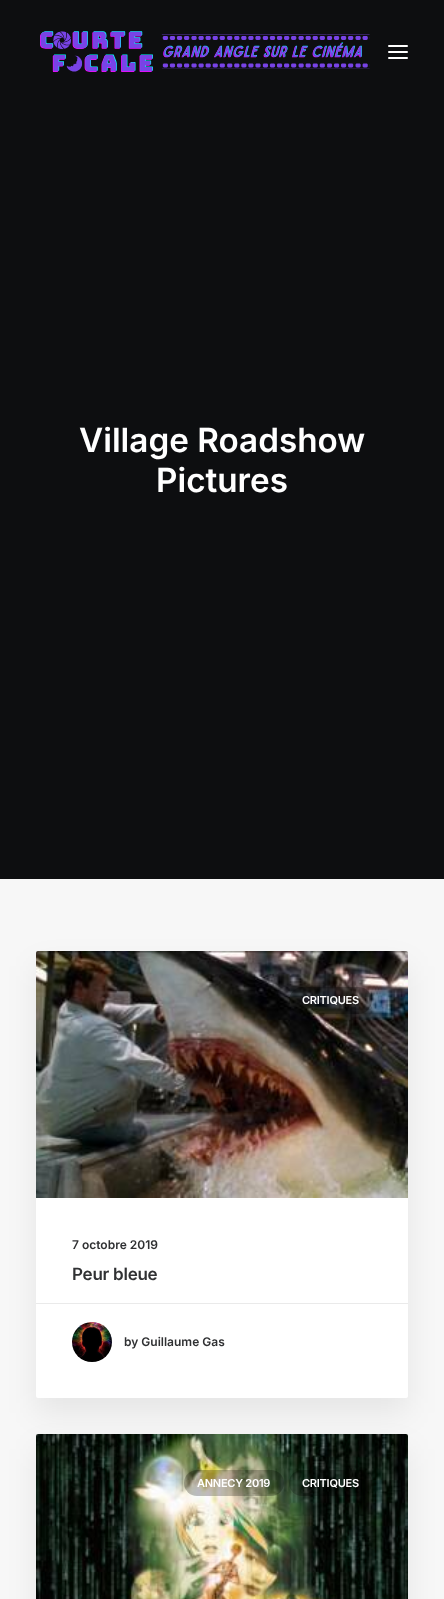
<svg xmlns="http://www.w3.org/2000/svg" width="444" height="1599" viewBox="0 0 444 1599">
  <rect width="100%" height="100%" fill="rgb(13,14,16)"/>
  <image x="40" y="31" width="330" height="41" href="pic1.png"/>
  <rect x="388" y="51" width="20" height="2" rx="1" fill="rgb(255,255,255)"/>
  <rect x="388" y="45" width="20" height="2" rx="1" fill="rgb(255,255,255)"/>
  <rect x="388" y="57" width="20" height="2" rx="1" fill="rgb(255,255,255)"/>
  <g font-family="Inter" font-size="33.25" font-weight="600" fill="rgb(255,255,255)">
    <text x="79" y="452">Village Roadshow</text>
    <text x="156" y="492">Pictures</text>
  </g>
  <rect x="0" y="879" width="444" height="720" fill="rgb(247,247,247)"/>
  <rect x="36" y="966" width="372" height="447" rx="2" fill="rgba(0,0,0,0.07)" filter="blur(15px)"/>
  <rect x="36" y="951" width="372" height="447" rx="2" fill="rgb(255,255,255)"/>
  <image x="36" y="951" width="372" height="247" href="pic2.png"/>
  <rect x="289" y="987" width="83" height="27" rx="13.5" fill="rgba(0,0,0,0.25)"/>
  <text x="302" y="1004" font-family="Inter" font-size="11" font-weight="600" letter-spacing="-0.25" fill="rgb(255,255,255)">CRITIQUES</text>
  <text x="72" y="1249" font-family="Inter" font-size="12" font-weight="600" fill="rgb(48,49,51)">7 octobre 2019</text>
  <text x="72" y="1280" font-family="Inter" font-size="17" font-weight="600" letter-spacing="-0.25" fill="rgb(48,49,51)">Peur bleue</text>
  <rect x="36" y="1303" width="372" height="1" fill="rgb(234,234,234)"/>
  <image x="72" y="1322" width="40" height="40" href="pic3.png"/>
  <text x="124" y="1346" font-family="Inter" font-size="12" font-weight="600" fill="rgb(48,49,51)">by Guillaume Gas</text>
  <rect x="36" y="1449" width="372" height="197" rx="2" fill="rgba(0,0,0,0.07)" filter="blur(15px)"/>
  <image x="36" y="1434" width="372" height="165" href="pic4.png"/>
  <rect x="184" y="1470" width="100" height="26" rx="13" fill="rgba(0,0,0,0.25)"/>
  <text x="197" y="1487" font-family="Inter" font-size="11" font-weight="600" letter-spacing="-0.25" fill="rgb(255,255,255)">ANNECY 2019</text>
  <rect x="289" y="1470" width="83" height="26" rx="13" fill="rgba(0,0,0,0.25)"/>
  <text x="302" y="1487" font-family="Inter" font-size="11" font-weight="600" letter-spacing="-0.25" fill="rgb(255,255,255)">CRITIQUES</text>
</svg>
